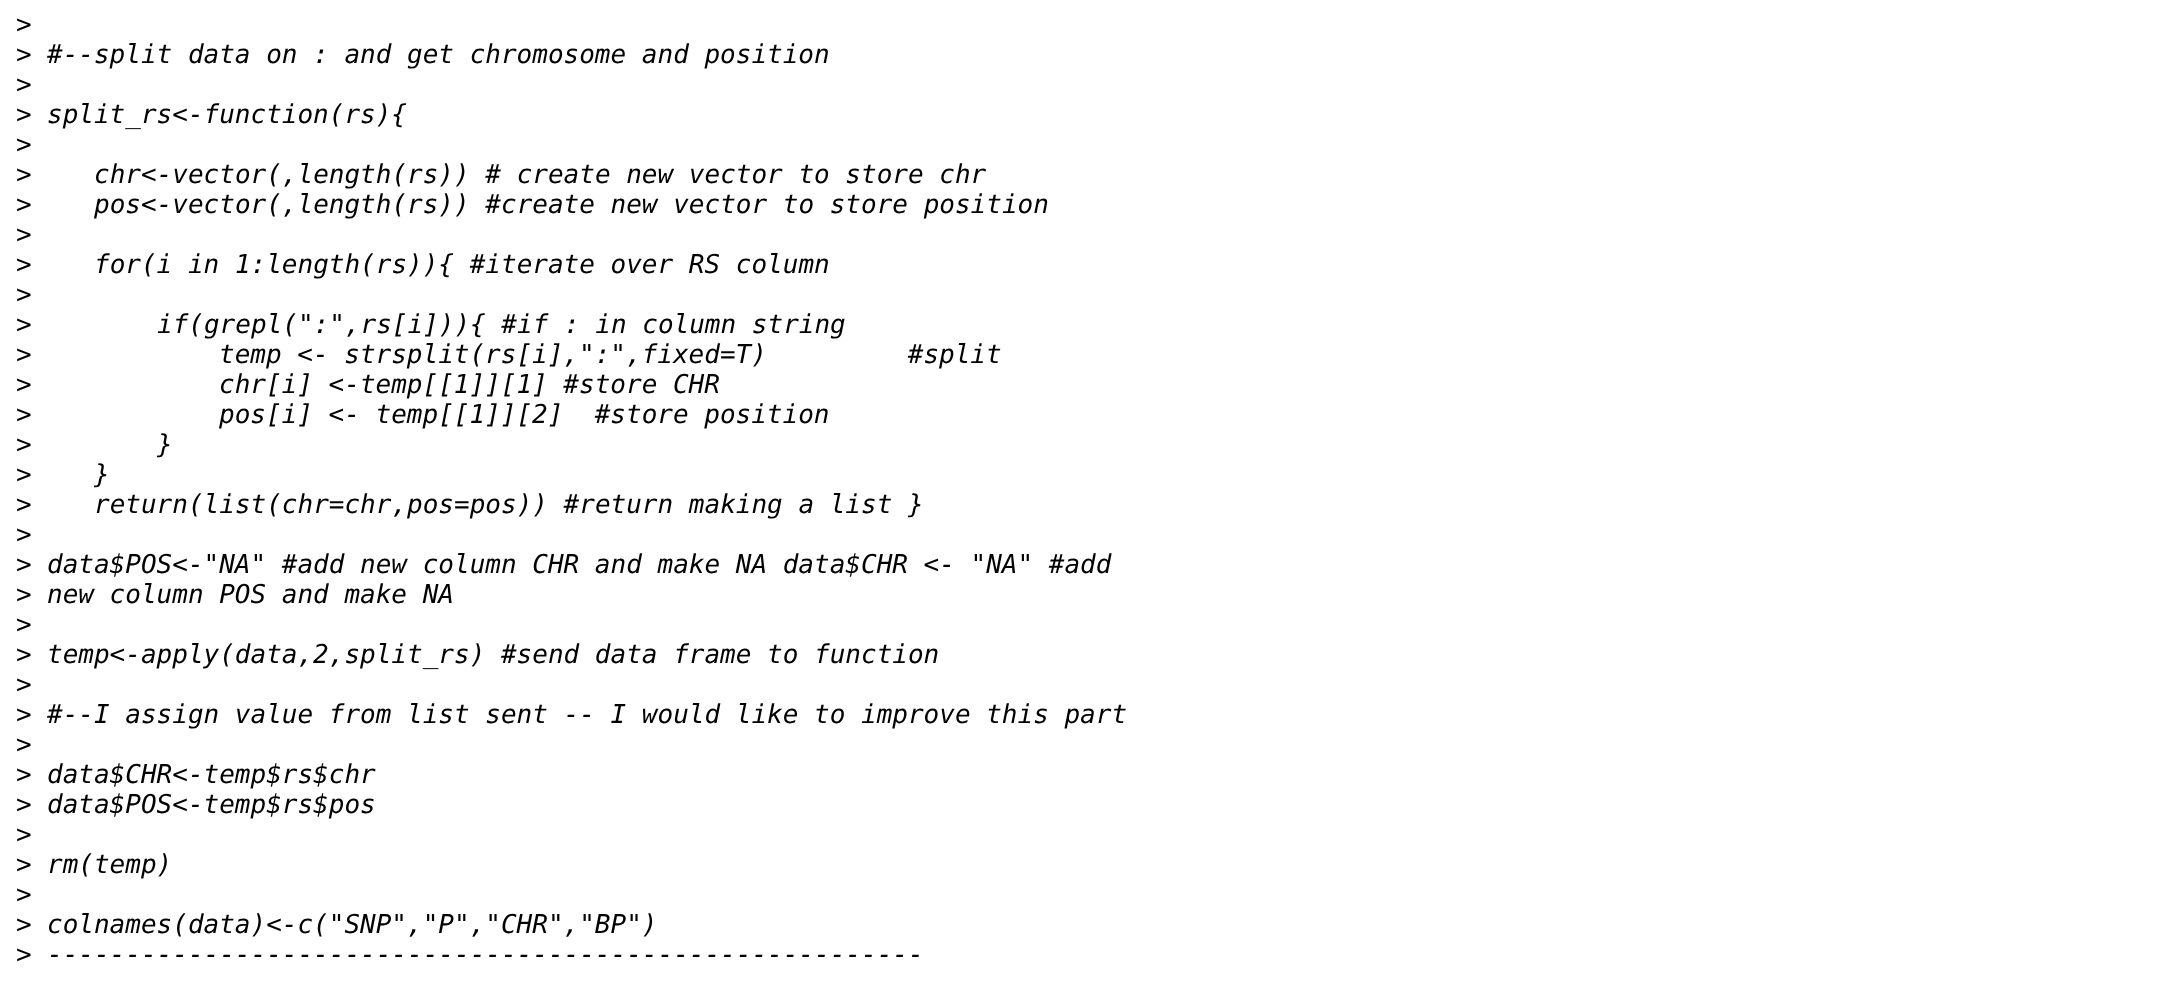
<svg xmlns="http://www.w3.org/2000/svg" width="2165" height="989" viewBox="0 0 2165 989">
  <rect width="100%" height="100%" fill="rgb(255,255,255)"/>
  <g font-family="DejaVu Sans Mono" font-size="26" fill="rgb(0,0,0)">
    <text>
      <tspan x="16" y="33">&gt;</tspan>
      <tspan x="16" y="63">&gt;</tspan>
    </text>
  </g>
  <text x="47" y="63" font-family="DejaVu Sans Mono" font-size="26" font-style="italic" fill="rgb(0,0,0)">#--split data on : and get chromosome and position</text>
  <g font-family="DejaVu Sans Mono" font-size="26" fill="rgb(0,0,0)">
    <text>
      <tspan x="16" y="93">&gt;</tspan>
      <tspan x="16" y="123">&gt;</tspan>
    </text>
  </g>
  <text x="47" y="123" font-family="DejaVu Sans Mono" font-size="26" font-style="italic" fill="rgb(0,0,0)">split_rs&lt;-function(rs){</text>
  <g font-family="DejaVu Sans Mono" font-size="26" fill="rgb(0,0,0)">
    <text>
      <tspan x="16" y="153">&gt;</tspan>
      <tspan x="16" y="183">&gt;</tspan>
    </text>
  </g>
  <text x="94" y="183" font-family="DejaVu Sans Mono" font-size="26" font-style="italic" fill="rgb(0,0,0)">chr&lt;-vector(,length(rs)) # create new vector to store chr</text>
  <text x="16" y="213" font-family="DejaVu Sans Mono" font-size="26" fill="rgb(0,0,0)">&gt;</text>
  <text x="94" y="213" font-family="DejaVu Sans Mono" font-size="26" font-style="italic" fill="rgb(0,0,0)">pos&lt;-vector(,length(rs)) #create new vector to store position</text>
  <g font-family="DejaVu Sans Mono" font-size="26" fill="rgb(0,0,0)">
    <text>
      <tspan x="16" y="243">&gt;</tspan>
      <tspan x="16" y="273">&gt;</tspan>
    </text>
  </g>
  <text x="94" y="273" font-family="DejaVu Sans Mono" font-size="26" font-style="italic" fill="rgb(0,0,0)">for(i in 1:length(rs)){ #iterate over RS column</text>
  <g font-family="DejaVu Sans Mono" font-size="26" fill="rgb(0,0,0)">
    <text>
      <tspan x="16" y="303">&gt;</tspan>
      <tspan x="16" y="333">&gt;</tspan>
    </text>
  </g>
  <text x="157" y="333" font-family="DejaVu Sans Mono" font-size="26" font-style="italic" fill="rgb(0,0,0)">if(grepl(":",rs[i])){ #if : in column string</text>
  <text x="16" y="363" font-family="DejaVu Sans Mono" font-size="26" fill="rgb(0,0,0)">&gt;</text>
  <text x="219" y="363" font-family="DejaVu Sans Mono" font-size="26" font-style="italic" fill="rgb(0,0,0)" xml:space="preserve">temp &lt;- strsplit(rs[i],":",fixed=T)         #split</text>
  <text x="16" y="393" font-family="DejaVu Sans Mono" font-size="26" fill="rgb(0,0,0)">&gt;</text>
  <text x="219" y="393" font-family="DejaVu Sans Mono" font-size="26" font-style="italic" fill="rgb(0,0,0)">chr[i] &lt;-temp[[1]][1] #store CHR</text>
  <text x="16" y="423" font-family="DejaVu Sans Mono" font-size="26" fill="rgb(0,0,0)">&gt;</text>
  <text x="219" y="423" font-family="DejaVu Sans Mono" font-size="26" font-style="italic" fill="rgb(0,0,0)" xml:space="preserve">pos[i] &lt;- temp[[1]][2]  #store position</text>
  <text x="16" y="453" font-family="DejaVu Sans Mono" font-size="26" fill="rgb(0,0,0)">&gt;</text>
  <text x="157" y="453" font-family="DejaVu Sans Mono" font-size="26" font-style="italic" fill="rgb(0,0,0)">}</text>
  <text x="16" y="483" font-family="DejaVu Sans Mono" font-size="26" fill="rgb(0,0,0)">&gt;</text>
  <text x="94" y="483" font-family="DejaVu Sans Mono" font-size="26" font-style="italic" fill="rgb(0,0,0)">}</text>
  <text x="16" y="513" font-family="DejaVu Sans Mono" font-size="26" fill="rgb(0,0,0)">&gt;</text>
  <text x="94" y="513" font-family="DejaVu Sans Mono" font-size="26" font-style="italic" fill="rgb(0,0,0)">return(list(chr=chr,pos=pos)) #return making a list }</text>
  <g font-family="DejaVu Sans Mono" font-size="26" fill="rgb(0,0,0)">
    <text>
      <tspan x="16" y="543">&gt;</tspan>
      <tspan x="16" y="573">&gt;</tspan>
    </text>
  </g>
  <text x="47" y="573" font-family="DejaVu Sans Mono" font-size="26" font-style="italic" fill="rgb(0,0,0)">data$POS&lt;-"NA" #add new column CHR and make NA data$CHR &lt;- "NA" #add</text>
  <text x="16" y="603" font-family="DejaVu Sans Mono" font-size="26" fill="rgb(0,0,0)">&gt;</text>
  <text x="47" y="603" font-family="DejaVu Sans Mono" font-size="26" font-style="italic" fill="rgb(0,0,0)">new column POS and make NA</text>
  <g font-family="DejaVu Sans Mono" font-size="26" fill="rgb(0,0,0)">
    <text>
      <tspan x="16" y="633">&gt;</tspan>
      <tspan x="16" y="663">&gt;</tspan>
    </text>
  </g>
  <text x="47" y="663" font-family="DejaVu Sans Mono" font-size="26" font-style="italic" fill="rgb(0,0,0)">temp&lt;-apply(data,2,split_rs) #send data frame to function</text>
  <g font-family="DejaVu Sans Mono" font-size="26" fill="rgb(0,0,0)">
    <text>
      <tspan x="16" y="693">&gt;</tspan>
      <tspan x="16" y="723">&gt;</tspan>
    </text>
  </g>
  <text x="47" y="723" font-family="DejaVu Sans Mono" font-size="26" font-style="italic" fill="rgb(0,0,0)">#--I assign value from list sent -- I would like to improve this part</text>
  <g font-family="DejaVu Sans Mono" font-size="26" fill="rgb(0,0,0)">
    <text>
      <tspan x="16" y="753">&gt;</tspan>
      <tspan x="16" y="783">&gt;</tspan>
    </text>
  </g>
  <text x="47" y="783" font-family="DejaVu Sans Mono" font-size="26" font-style="italic" fill="rgb(0,0,0)">data$CHR&lt;-temp$rs$chr</text>
  <text x="16" y="813" font-family="DejaVu Sans Mono" font-size="26" fill="rgb(0,0,0)">&gt;</text>
  <text x="47" y="813" font-family="DejaVu Sans Mono" font-size="26" font-style="italic" fill="rgb(0,0,0)">data$POS&lt;-temp$rs$pos</text>
  <g font-family="DejaVu Sans Mono" font-size="26" fill="rgb(0,0,0)">
    <text>
      <tspan x="16" y="843">&gt;</tspan>
      <tspan x="16" y="873">&gt;</tspan>
    </text>
  </g>
  <text x="47" y="873" font-family="DejaVu Sans Mono" font-size="26" font-style="italic" fill="rgb(0,0,0)">rm(temp)</text>
  <g font-family="DejaVu Sans Mono" font-size="26" fill="rgb(0,0,0)">
    <text>
      <tspan x="16" y="903">&gt;</tspan>
      <tspan x="16" y="933">&gt;</tspan>
    </text>
  </g>
  <text x="47" y="933" font-family="DejaVu Sans Mono" font-size="26" font-style="italic" fill="rgb(0,0,0)">colnames(data)&lt;-c("SNP","P","CHR","BP")</text>
  <text x="16" y="963" font-family="DejaVu Sans Mono" font-size="26" fill="rgb(0,0,0)">&gt;</text>
  <text x="47" y="963" font-family="DejaVu Sans Mono" font-size="26" font-style="italic" fill="rgb(0,0,0)">--------------------------------------------------------</text>
</svg>
